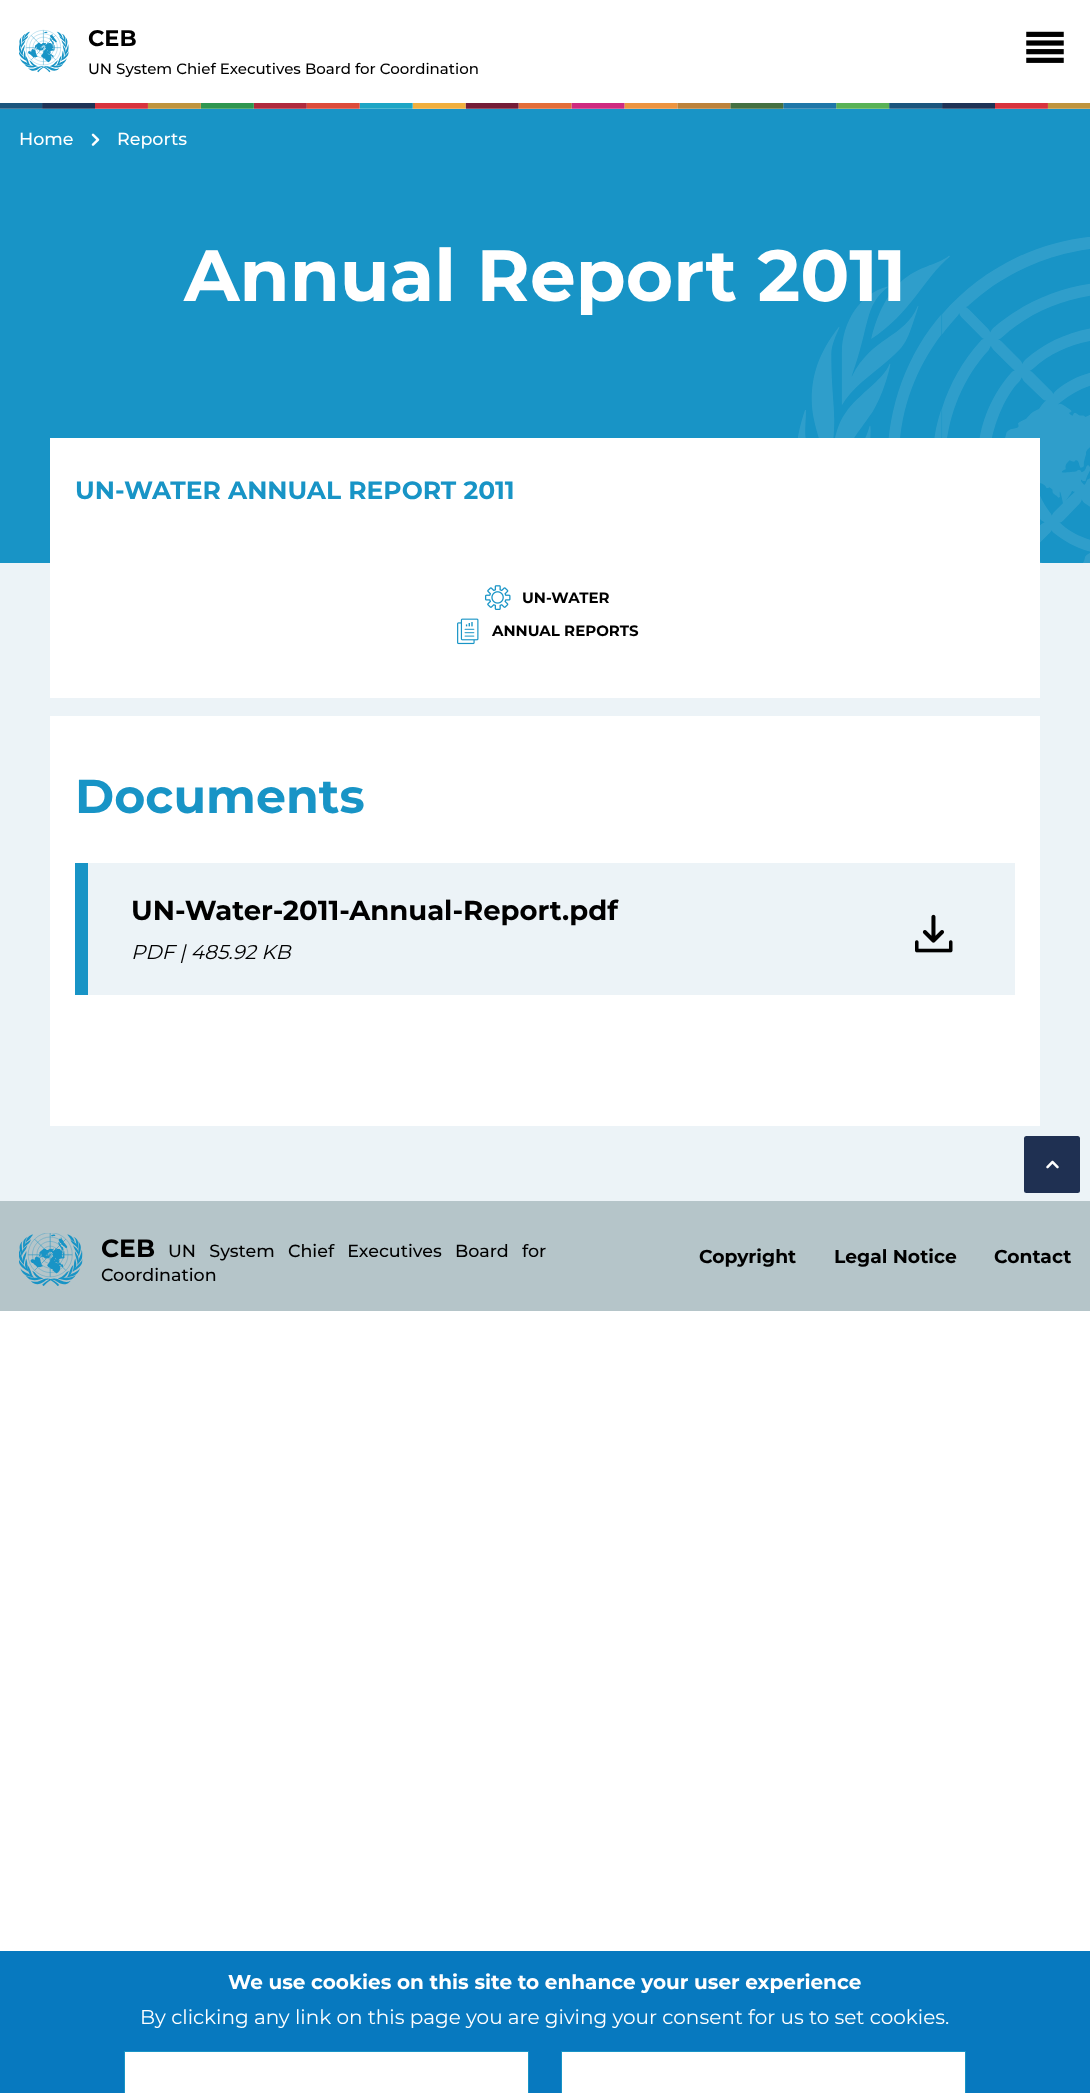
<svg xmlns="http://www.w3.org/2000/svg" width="1090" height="2093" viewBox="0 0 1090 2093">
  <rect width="100%" height="100%" fill="rgb(255,255,255)"/>
  <rect x="0" y="103" width="1090" height="1098" fill="rgb(236,243,247)"/>
  <image x="0" y="103" width="1090" height="6" href="pic1.png"/>
  <image x="19" y="29" width="50" height="44" href="pic2.png"/>
  <text x="88" y="46" font-family="Montserrat" font-size="22.5" font-weight="bold" fill="rgb(0,0,0)">CEB</text>
  <text x="88" y="74" font-family="Montserrat" font-size="15" font-weight="500" fill="rgb(0,0,0)">UN System Chief Executives Board for Coordination</text>
  <image x="1026" y="31" width="38" height="32" href="pic3.png"/>
  <rect x="0" y="109" width="1090" height="454" fill="rgb(24,148,198)"/>
  <text x="19" y="145" font-family="Montserrat" font-size="17.5" font-weight="500" fill="rgb(255,255,255)">Home</text>
  <image x="91" y="133" width="9" height="13" href="pic4.png"/>
  <text x="117" y="145" font-family="Montserrat" font-size="17.5" font-weight="500" fill="rgb(255,255,255)">Reports</text>
  <text x="184" y="301" font-family="Montserrat" font-size="72.5" font-weight="bold" fill="rgb(255,255,255)">Annual Report 2011</text>
  <image x="798" y="237" width="292" height="326" href="pic5.png"/>
  <rect x="50" y="438" width="990" height="688" fill="rgb(255,255,255)"/>
  <text x="75" y="499" font-family="Montserrat" font-size="25" font-weight="bold" fill="rgb(24,148,198)">UN-WATER ANNUAL REPORT 2011</text>
  <image x="485" y="585" width="26" height="25" href="pic6.png"/>
  <text x="522" y="603" font-family="Montserrat" font-size="15" font-weight="bold" fill="rgb(0,0,0)">UN-WATER</text>
  <image x="457" y="618" width="22" height="27" href="pic7.png"/>
  <text x="492" y="636" font-family="Montserrat" font-size="15" font-weight="bold" fill="rgb(0,0,0)">ANNUAL REPORTS</text>
  <rect x="50" y="698" width="990" height="18" fill="rgb(236,243,247)"/>
  <text x="75" y="813" font-family="Montserrat" font-size="47.5" font-weight="bold" fill="rgb(24,148,198)">Documents</text>
  <rect x="88" y="863" width="927" height="132" fill="rgb(236,243,247)"/>
  <rect x="75" y="863" width="13" height="132" fill="rgb(24,148,198)"/>
  <text x="131" y="920" font-family="Montserrat" font-size="27.5" font-weight="bold" fill="rgb(0,0,0)">UN-Water-2011-Annual-Report.pdf</text>
  <text x="131" y="959" font-family="Montserrat" font-size="20" font-style="italic" fill="rgb(0,0,0)">PDF | 485.92 KB</text>
  <image x="915" y="914" width="38" height="39" href="pic8.png"/>
  <rect x="0" y="1201" width="1090" height="110" fill="rgb(181,197,201)"/>
  <rect x="1024" y="1136" width="56" height="57" rx="2.5" fill="rgb(31,48,82)"/>
  <image x="1046" y="1160" width="13" height="9" href="pic9.png"/>
  <image x="19" y="1233" width="64" height="53" href="pic10.png"/>
  <text x="101" y="1257" font-family="Montserrat" font-size="25" font-weight="bold" fill="rgb(0,0,0)">CEB</text>
  <g font-family="Montserrat" font-size="17.5" font-weight="500" fill="rgb(0,0,0)">
    <text x="168" y="1257" word-spacing="8.5">UN System Chief Executives Board for</text>
    <text x="101" y="1281">Coordination</text>
  </g>
  <g font-family="Montserrat" font-size="18.75" font-weight="bold" fill="rgb(0,0,0)">
    <text x="699" y="1263">Copyright</text>
    <text x="834" y="1263">Legal Notice</text>
    <text x="994" y="1263">Contact</text>
  </g>
  <rect x="0" y="1951" width="1090" height="142" fill="rgb(7,121,191)"/>
  <text x="228" y="1989" font-family="Montserrat" font-size="20" font-weight="bold" fill="rgb(255,255,255)">We use cookies on this site to enhance your user experience</text>
  <text x="140" y="2024" font-family="Montserrat" font-size="20" fill="rgb(255,255,255)">By clicking any link on this page you are giving your consent for us to set cookies.</text>
  <rect x="124.5" y="2051.5" width="404" height="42" fill="rgb(255,255,255)" stroke="rgb(24,148,198)"/>
  <rect x="561.5" y="2051.5" width="404" height="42" fill="rgb(255,255,255)" stroke="rgb(24,148,198)"/>
</svg>
